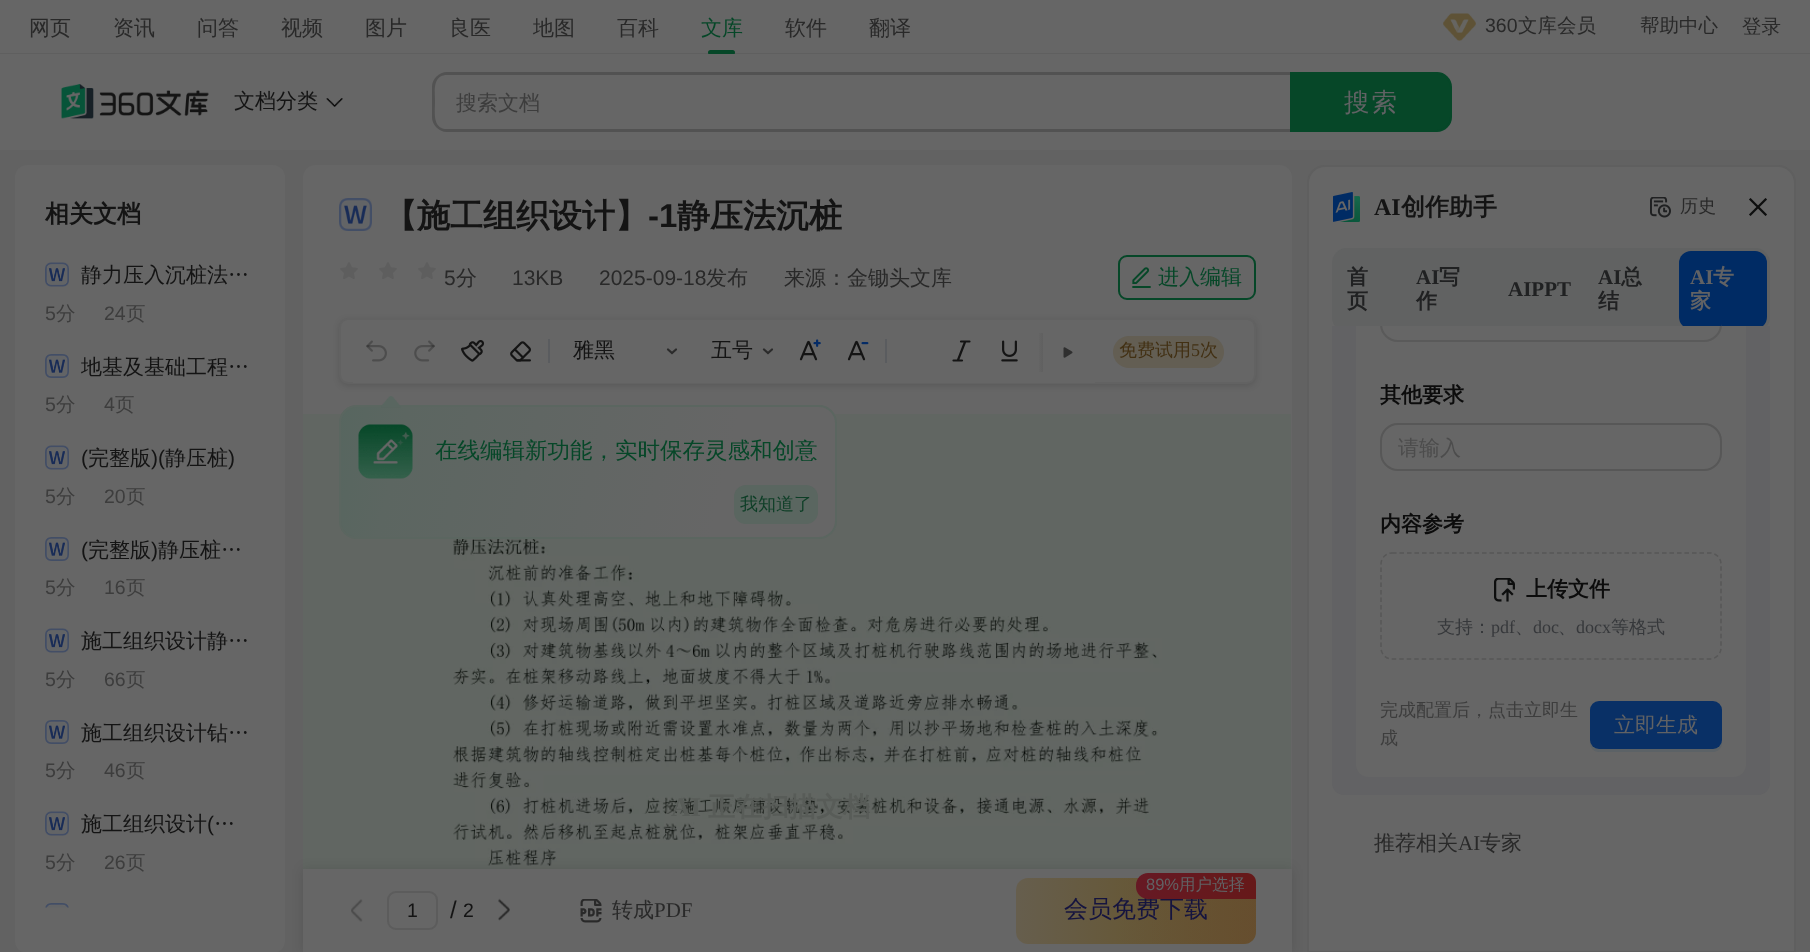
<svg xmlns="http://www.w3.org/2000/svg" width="1810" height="952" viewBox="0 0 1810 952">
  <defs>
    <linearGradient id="g1" gradientUnits="userSpaceOnUse" x1="1043" y1="353" x2="1037" y2="353"><stop offset="0" stop-color="rgb(96,96,96)"/><stop offset="1" stop-color="rgb(102,102,102)"/></linearGradient>
    <clipPath id="clip1"><rect x="339" y="405" width="498" height="134" rx="18"/></clipPath>
    <linearGradient id="g2" gradientUnits="userSpaceOnUse" x1="326" y1="411" x2="837" y2="529"><stop offset="0" stop-color="rgb(86,102,95)"/><stop offset="0.15" stop-color="rgb(92,102,97)"/><stop offset="0.77" stop-color="rgb(102,102,102)"/></linearGradient>
    <linearGradient id="g3" gradientUnits="userSpaceOnUse" x1="1015" y1="908" x2="1356" y2="914"><stop offset="0.01" stop-color="rgb(102,94,77)"/><stop offset="1" stop-color="rgb(102,76,14)"/></linearGradient>
    <linearGradient id="g4" gradientUnits="userSpaceOnUse" x1="1014" y1="904" x2="1453" y2="927"><stop offset="0.24" stop-color="rgb(102,67,88)" stop-opacity="0"/><stop offset="1" stop-color="rgb(102,67,88)" stop-opacity="0.6"/></linearGradient>
    <linearGradient id="g5" gradientUnits="userSpaceOnUse" x1="1136" y1="885" x2="1256" y2="885"><stop offset="0" stop-color="rgb(102,25,36)"/><stop offset="1" stop-color="rgb(102,25,25)"/></linearGradient>
    <clipPath id="clip2"><rect x="1308" y="326" width="486" height="625"/></clipPath>
  </defs>
  <rect width="100%" height="100%" fill="rgb(102,102,102)"/>
  <rect x="0" y="53" width="1810" height="1" fill="rgb(95,95,95)"/>
  <g font-family="WenQuanYi Zen Hei" font-size="21" font-weight="500" fill="rgb(41,41,41)">
    <text x="29" y="35">网页</text>
    <text x="113" y="35">资讯</text>
    <text x="197" y="35">问答</text>
    <text x="281" y="35">视频</text>
    <text x="365" y="35">图片</text>
    <text x="449" y="35">良医</text>
    <text x="533" y="35">地图</text>
    <text x="617" y="35">百科</text>
  </g>
  <text x="701" y="35" font-family="WenQuanYi Zen Hei" font-size="21" font-weight="500" fill="rgb(6,71,40)">文库</text>
  <rect x="708" y="50" width="27" height="5" rx="2.5" fill="rgb(6,71,40)"/>
  <g font-family="WenQuanYi Zen Hei" font-size="21" font-weight="500" fill="rgb(41,41,41)">
    <text x="785" y="35">软件</text>
    <text x="869" y="35">翻译</text>
  </g>
  <image x="1443" y="13" width="33" height="28" href="pic1.png"/>
  <text x="1485" y="32" font-family="Liberation Sans" font-size="19.5" fill="rgb(41,41,41)">360</text>
  <g font-family="WenQuanYi Zen Hei" font-size="19.5" font-weight="500" fill="rgb(41,41,41)">
    <text x="1518" y="32">文库会员</text>
    <text x="1640" y="32">帮助中心</text>
    <text x="1742" y="33">登录</text>
  </g>
  <rect x="708" y="54" width="27" height="1" fill="rgb(102,102,102)"/>
  <image x="61" y="84" width="148" height="35" href="pic2.png"/>
  <text x="234" y="108" font-family="WenQuanYi Zen Hei" font-size="21" font-weight="500" fill="rgb(20,20,20)">文档分类</text>
  <image x="326" y="98" width="17" height="9" href="pic3.png"/>
  <path d="M447 72H1290V132H447C439 132 432 125 432 117V87C432 79 439 72 447 72ZM447 75H1290V129H447C432 129 435 112 435 102C435 92 432 75 447 75Z" fill="rgb(82,82,82)" fill-rule="evenodd"/>
  <text x="456" y="110" font-family="WenQuanYi Zen Hei" font-size="21" font-weight="500" fill="rgb(61,61,61)">搜索文档</text>
  <path d="M1291 73H1437C1444.5 73 1451 79.5 1451 87V117C1451 124.5 1444.5 131 1437 131H1291Z" fill="rgb(6,71,40)" stroke="rgb(6,71,40)" stroke-width="2"/>
  <text x="1344" y="111" font-family="WenQuanYi Zen Hei" font-size="25.5" font-weight="500" letter-spacing="2" fill="rgb(97,98,100)">搜索</text>
  <rect x="0" y="150" width="1810" height="802" fill="rgb(98,98,98)"/>
  <rect x="15" y="165" width="270" height="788" rx="12" fill="rgb(102,102,102)"/>
  <text x="45" y="222" font-family="WenQuanYi Zen Hei" font-size="24" font-weight="bold" fill="rgb(20,20,20)">相关文档</text>
  <image x="45" y="262" width="24" height="25" href="pic4.png"/>
  <text x="81" y="282" font-family="WenQuanYi Zen Hei" font-size="21" font-weight="500" fill="rgb(20,20,20)">静力压入沉桩法…</text>
  <text x="45" y="320" font-family="Liberation Sans" font-size="19.5" fill="rgb(61,61,61)">5</text>
  <text x="56" y="320" font-family="WenQuanYi Zen Hei" font-size="19.5" font-weight="500" fill="rgb(61,61,61)">分</text>
  <text x="104" y="320" font-family="Liberation Sans" font-size="19.5" fill="rgb(61,61,61)">24</text>
  <text x="126" y="320" font-family="WenQuanYi Zen Hei" font-size="19.5" font-weight="500" fill="rgb(61,61,61)">页</text>
  <image x="45" y="354" width="24" height="24" href="pic5.png"/>
  <text x="81" y="374" font-family="WenQuanYi Zen Hei" font-size="21" font-weight="500" fill="rgb(20,20,20)">地基及基础工程…</text>
  <text x="45" y="411" font-family="Liberation Sans" font-size="19.5" fill="rgb(61,61,61)">5</text>
  <text x="56" y="411" font-family="WenQuanYi Zen Hei" font-size="19.5" font-weight="500" fill="rgb(61,61,61)">分</text>
  <text x="104" y="411" font-family="Liberation Sans" font-size="19.5" fill="rgb(61,61,61)">4</text>
  <text x="115" y="411" font-family="WenQuanYi Zen Hei" font-size="19.5" font-weight="500" fill="rgb(61,61,61)">页</text>
  <image x="45" y="445" width="24" height="25" href="pic6.png"/>
  <text x="81" y="465" font-family="Liberation Sans" font-size="21" fill="rgb(20,20,20)">(</text>
  <text x="88" y="465" font-family="WenQuanYi Zen Hei" font-size="21" font-weight="500" fill="rgb(20,20,20)">完整版</text>
  <text x="151" y="465" font-family="Liberation Sans" font-size="21" fill="rgb(20,20,20)">)(</text>
  <text x="165" y="465" font-family="WenQuanYi Zen Hei" font-size="21" font-weight="500" fill="rgb(20,20,20)">静压桩</text>
  <text x="228" y="465" font-family="Liberation Sans" font-size="21" fill="rgb(20,20,20)">)</text>
  <text x="45" y="503" font-family="Liberation Sans" font-size="19.5" fill="rgb(61,61,61)">5</text>
  <text x="56" y="503" font-family="WenQuanYi Zen Hei" font-size="19.5" font-weight="500" fill="rgb(61,61,61)">分</text>
  <text x="104" y="503" font-family="Liberation Sans" font-size="19.5" fill="rgb(61,61,61)">20</text>
  <text x="126" y="503" font-family="WenQuanYi Zen Hei" font-size="19.5" font-weight="500" fill="rgb(61,61,61)">页</text>
  <image x="45" y="537" width="24" height="24" href="pic5.png"/>
  <text x="81" y="557" font-family="Liberation Sans" font-size="21" fill="rgb(20,20,20)">(</text>
  <text x="88" y="557" font-family="WenQuanYi Zen Hei" font-size="21" font-weight="500" fill="rgb(20,20,20)">完整版</text>
  <text x="151" y="557" font-family="Liberation Sans" font-size="21" fill="rgb(20,20,20)">)</text>
  <text x="158" y="557" font-family="WenQuanYi Zen Hei" font-size="21" font-weight="500" fill="rgb(20,20,20)">静压桩…</text>
  <text x="45" y="594" font-family="Liberation Sans" font-size="19.5" fill="rgb(61,61,61)">5</text>
  <text x="56" y="594" font-family="WenQuanYi Zen Hei" font-size="19.5" font-weight="500" fill="rgb(61,61,61)">分</text>
  <text x="104" y="594" font-family="Liberation Sans" font-size="19.5" fill="rgb(61,61,61)">16</text>
  <text x="126" y="594" font-family="WenQuanYi Zen Hei" font-size="19.5" font-weight="500" fill="rgb(61,61,61)">页</text>
  <image x="45" y="628" width="24" height="25" href="pic6.png"/>
  <text x="81" y="648" font-family="WenQuanYi Zen Hei" font-size="21" font-weight="500" fill="rgb(20,20,20)">施工组织设计静…</text>
  <text x="45" y="686" font-family="Liberation Sans" font-size="19.5" fill="rgb(61,61,61)">5</text>
  <text x="56" y="686" font-family="WenQuanYi Zen Hei" font-size="19.5" font-weight="500" fill="rgb(61,61,61)">分</text>
  <text x="104" y="686" font-family="Liberation Sans" font-size="19.5" fill="rgb(61,61,61)">66</text>
  <text x="126" y="686" font-family="WenQuanYi Zen Hei" font-size="19.5" font-weight="500" fill="rgb(61,61,61)">页</text>
  <image x="45" y="720" width="24" height="24" href="pic5.png"/>
  <text x="81" y="740" font-family="WenQuanYi Zen Hei" font-size="21" font-weight="500" fill="rgb(20,20,20)">施工组织设计钻…</text>
  <text x="45" y="777" font-family="Liberation Sans" font-size="19.5" fill="rgb(61,61,61)">5</text>
  <text x="56" y="777" font-family="WenQuanYi Zen Hei" font-size="19.5" font-weight="500" fill="rgb(61,61,61)">分</text>
  <text x="104" y="777" font-family="Liberation Sans" font-size="19.5" fill="rgb(61,61,61)">46</text>
  <text x="126" y="777" font-family="WenQuanYi Zen Hei" font-size="19.5" font-weight="500" fill="rgb(61,61,61)">页</text>
  <image x="45" y="811" width="24" height="25" href="pic6.png"/>
  <text x="81" y="831" font-family="WenQuanYi Zen Hei" font-size="21" font-weight="500" fill="rgb(20,20,20)">施工组织设计</text>
  <text x="207" y="831" font-family="Liberation Sans" font-size="21" fill="rgb(20,20,20)">(</text>
  <text x="214" y="831" font-family="WenQuanYi Zen Hei" font-size="21" font-weight="500" fill="rgb(20,20,20)">…</text>
  <text x="45" y="869" font-family="Liberation Sans" font-size="19.5" fill="rgb(61,61,61)">5</text>
  <text x="56" y="869" font-family="WenQuanYi Zen Hei" font-size="19.5" font-weight="500" fill="rgb(61,61,61)">分</text>
  <text x="104" y="869" font-family="Liberation Sans" font-size="19.5" fill="rgb(61,61,61)">26</text>
  <text x="126" y="869" font-family="WenQuanYi Zen Hei" font-size="19.5" font-weight="500" fill="rgb(61,61,61)">页</text>
  <image x="45" y="903" width="24" height="5" href="pic7.png"/>
  <path d="M315 165H1280C1286.5 165 1292 170.5 1292 177V414H303V177C303 170.5 308.5 165 315 165Z" fill="rgb(102,102,102)"/>
  <image x="339" y="198" width="33" height="33" href="pic8.png"/>
  <text x="384" y="227" font-family="WenQuanYi Zen Hei" font-size="33" font-weight="bold" fill="rgb(20,20,20)">【施工组织设计】</text>
  <text x="648" y="227" font-family="Liberation Sans" font-size="33" font-weight="bold" fill="rgb(20,20,20)">-1</text>
  <text x="677" y="227" font-family="WenQuanYi Zen Hei" font-size="33" font-weight="bold" fill="rgb(20,20,20)">静压法沉桩</text>
  <image x="340" y="262" width="18" height="17" href="pic9.png"/>
  <image x="379" y="262" width="18" height="17" href="pic9.png"/>
  <image x="418" y="262" width="18" height="17" href="pic9.png"/>
  <text x="444" y="285" font-family="Liberation Sans" font-size="21" fill="rgb(41,41,41)">5</text>
  <text x="456" y="285" font-family="WenQuanYi Zen Hei" font-size="21" font-weight="500" fill="rgb(41,41,41)">分</text>
  <g font-family="Liberation Sans" font-size="21" fill="rgb(41,41,41)">
    <text x="512" y="285">13KB</text>
    <text x="599" y="285">2025-09-18</text>
  </g>
  <g font-family="WenQuanYi Zen Hei" font-size="21" font-weight="500" fill="rgb(41,41,41)">
    <text x="706" y="285">发布</text>
    <text x="784" y="285">来源：金锄头文库</text>
  </g>
  <rect x="1119" y="256" width="136" height="43" rx="8" fill="none" stroke="rgb(6,71,40)" stroke-width="2"/>
  <image x="1132" y="267" width="19" height="21" href="pic10.png"/>
  <text x="1158" y="284" font-family="WenQuanYi Zen Hei" font-size="21" font-weight="500" fill="rgb(6,71,40)">进入编辑</text>
  <rect x="339" y="320" width="917" height="66" rx="9" fill="rgba(0,0,0,0.12)" filter="blur(3px)"/>
  <rect x="340" y="319" width="915" height="64" rx="8" fill="rgb(102,102,102)" stroke="rgb(98,98,98)" stroke-width="2"/>
  <rect x="353" y="382" width="742" height="1" fill="rgb(102,102,102)"/>
  <image x="366" y="340" width="21" height="22" href="pic11.png"/>
  <image x="414" y="340" width="21" height="22" href="pic12.png"/>
  <image x="461" y="340" width="24" height="22" href="pic13.png"/>
  <image x="510" y="341" width="21" height="21" href="pic14.png"/>
  <rect x="548" y="339" width="2" height="24" fill="rgb(90,92,95)"/>
  <text x="573" y="357" font-family="WenQuanYi Zen Hei" font-size="21" font-weight="500" fill="rgb(20,20,20)">雅黑</text>
  <path d="M668 349.5L672 353L676 349.5" fill="none" stroke="rgb(43,43,43)" stroke-width="2.2" stroke-linecap="round"/>
  <text x="711" y="357" font-family="WenQuanYi Zen Hei" font-size="21" font-weight="500" fill="rgb(20,20,20)">五号</text>
  <path d="M764 349.5L768 353L772 349.5" fill="none" stroke="rgb(43,43,43)" stroke-width="2.2" stroke-linecap="round"/>
  <image x="799" y="339" width="22" height="22" href="pic15.png"/>
  <image x="847" y="340" width="22" height="21" href="pic16.png"/>
  <rect x="885" y="339" width="2" height="24" fill="rgb(90,92,95)"/>
  <path d="M961 341.5H969.5M965 342L958 360M953.5 360.5H962" fill="none" stroke="rgb(20,20,20)" stroke-width="2.2" stroke-linecap="round"/>
  <image x="1001" y="340" width="17" height="22" href="pic17.png"/>
  <rect x="1039" y="333" width="4" height="39" fill="url(#g1)"/>
  <image x="1063" y="347" width="10" height="11" href="pic18.png"/>
  <rect x="1113" y="336" width="111" height="32" rx="16" fill="rgb(99,94,83)"/>
  <text x="1119" y="356" font-family="WenQuanYi Zen Hei" font-size="18" font-weight="500" fill="rgb(66,48,19)">免费试用</text>
  <text x="1191" y="356" font-family="Liberation Serif" font-size="18" fill="rgb(66,48,19)">5</text>
  <text x="1200" y="356" font-family="WenQuanYi Zen Hei" font-size="18" font-weight="500" fill="rgb(66,48,19)">次</text>
  <image x="303" y="414" width="988" height="455" href="pic21.png"/>
  <g clip-path="url(#clip1)">
    <rect x="341" y="407" width="495" height="130" fill="url(#g2)"/>
  </g>
  <rect x="340" y="406" width="496" height="132" rx="17" fill="none" stroke="rgb(91,102,96)" stroke-width="2"/>
  <image x="381" y="396" width="20" height="12" href="pic19.png"/>
  <image x="358" y="424" width="55" height="55" href="pic20.png"/>
  <text x="435" y="458" font-family="WenQuanYi Zen Hei" font-size="22.5" font-weight="500" fill="rgb(6,71,40)">在线编辑新功能，实时保存灵感和创意</text>
  <rect x="734" y="485" width="84" height="39" rx="12" fill="rgb(90,102,96)"/>
  <text x="740" y="510" font-family="WenQuanYi Zen Hei" font-size="18" font-weight="500" fill="rgb(13,62,38)">我知道了</text>
  <rect x="1291" y="414" width="1" height="455" fill="rgb(102,102,102)"/>
  <path d="M1325 166H1778C1787.5 166 1795 173.5 1795 183V952H1308V183C1308 173.5 1315.5 166 1325 166Z" fill="rgb(102,102,102)" stroke="rgb(95,95,95)" stroke-width="2"/>
  <rect x="303" y="869" width="989" height="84" fill="rgba(0,0,0,0.12)" filter="blur(6px)"/>
  <rect x="303" y="869" width="989" height="83" fill="rgb(102,102,102)"/>
  <image x="351" y="899" width="12" height="23" href="pic22.png"/>
  <rect x="388" y="892" width="49" height="37" rx="8" fill="none" stroke="rgb(92,92,92)" stroke-width="2"/>
  <text x="407" y="917" font-family="Liberation Sans" font-size="19.5" fill="rgb(20,20,20)">1</text>
  <text x="450" y="918" font-family="Liberation Sans" font-size="24" fill="rgb(20,20,20)">/</text>
  <text x="463" y="917" font-family="Liberation Sans" font-size="19.5" fill="rgb(20,20,20)">2</text>
  <image x="498" y="898" width="12" height="23" href="pic23.png"/>
  <image x="580" y="899" width="22" height="24" href="pic24.png"/>
  <text x="612" y="917" font-family="WenQuanYi Zen Hei" font-size="21" font-weight="500" fill="rgb(41,41,41)">转成</text>
  <text x="654" y="917" font-family="Liberation Serif" font-size="21" fill="rgb(41,41,41)">PDF</text>
  <rect x="1016" y="878" width="240" height="66" rx="12" fill="url(#g3)"/>
  <rect x="1016" y="878" width="240" height="66" rx="12" fill="url(#g4)"/>
  <text x="1064" y="917" font-family="WenQuanYi Zen Hei" font-size="24" font-weight="500" fill="rgb(21,20,63)">会员免费下载</text>
  <path d="M1148 873H1247C1252 873 1256 877 1256 882V899H1148C1141.5 899 1136 893.5 1136 887V885C1136 878.5 1141.5 873 1148 873Z" fill="url(#g5)"/>
  <text x="1146" y="890" font-family="Liberation Sans" font-size="16.5" fill="rgb(97,98,100)">89%</text>
  <text x="1179" y="890" font-family="WenQuanYi Zen Hei" font-size="16.5" font-weight="500" fill="rgb(97,98,100)">用户选择</text>
  <text x="671" y="816" font-family="Liberation Serif" font-size="27" font-weight="bold" fill="rgb(88,92,88)">AI</text>
  <text x="708" y="816" font-family="WenQuanYi Zen Hei" font-size="27" font-weight="bold" fill="rgb(88,92,88)">正在扫描文档</text>
  <image x="1333" y="192" width="27" height="30" href="pic25.png"/>
  <text x="1374" y="215" font-family="Liberation Serif" font-size="24" font-weight="bold" fill="rgb(20,20,20)">AI</text>
  <text x="1401" y="215" font-family="WenQuanYi Zen Hei" font-size="24" font-weight="bold" fill="rgb(20,20,20)">创作助手</text>
  <image x="1650" y="197" width="21" height="21" href="pic26.png"/>
  <text x="1680" y="212" font-family="WenQuanYi Zen Hei" font-size="18" font-weight="500" fill="rgb(41,41,41)">历史</text>
  <image x="1749" y="198" width="18" height="18" href="pic27.png"/>
  <rect x="1332" y="248" width="438" height="84" rx="15" fill="rgb(97,98,98)"/>
  <g font-family="WenQuanYi Zen Hei" font-size="21" font-weight="bold" fill="rgb(32,33,34)">
    <text>
      <tspan x="1347" y="284">首</tspan>
      <tspan x="1347" y="308">页</tspan>
    </text>
  </g>
  <text x="1416" y="284" font-family="Liberation Serif" font-size="21" font-weight="bold" fill="rgb(32,33,34)">AI</text>
  <g font-family="WenQuanYi Zen Hei" font-size="21" font-weight="bold" fill="rgb(32,33,34)">
    <text x="1439" y="284">写</text>
    <text x="1416" y="308">作</text>
  </g>
  <g font-family="Liberation Serif" font-size="21" font-weight="bold" fill="rgb(32,33,34)">
    <text x="1508" y="296">AIPPT</text>
    <text x="1598" y="284">AI</text>
  </g>
  <g font-family="WenQuanYi Zen Hei" font-size="21" font-weight="bold" fill="rgb(32,33,34)">
    <text x="1621" y="284">总</text>
    <text x="1598" y="308">结</text>
  </g>
  <rect x="1679" y="251" width="88" height="78" rx="12" fill="rgb(0,43,100)"/>
  <text x="1690" y="284" font-family="Liberation Serif" font-size="21" font-weight="bold" fill="rgb(97,98,100)">AI</text>
  <g font-family="WenQuanYi Zen Hei" font-size="21" font-weight="bold" fill="rgb(97,98,100)">
    <text x="1713" y="284">专</text>
    <text x="1690" y="308">家</text>
  </g>
  <path d="M1332 326H1770V783C1770 789.5 1764.5 795 1758 795H1344C1337.5 795 1332 789.5 1332 783Z" fill="rgb(98,98,100)"/>
  <path d="M1356 326H1746V765C1746 771.5 1740.5 777 1734 777H1368C1361.5 777 1356 771.5 1356 765Z" fill="rgb(102,102,102)"/>
  <path d="M1380 326H1722V324C1722 334 1714 342 1704 342H1398C1388 342 1380 334 1380 324Z" fill="rgb(102,102,102)"/>
  <g clip-path="url(#clip2)">
    <rect x="1381" y="295" width="340" height="46" rx="17" fill="none" stroke="rgb(90,90,90)" stroke-width="2"/>
  </g>
  <text x="1380" y="402" font-family="WenQuanYi Zen Hei" font-size="21" font-weight="bold" fill="rgb(12,12,12)">其他要求</text>
  <rect x="1381" y="424" width="340" height="46" rx="17" fill="none" stroke="rgb(87,87,87)" stroke-width="2"/>
  <text x="1398" y="455" font-family="WenQuanYi Zen Hei" font-size="21" font-weight="500" fill="rgb(76,76,76)">请输入</text>
  <text x="1380" y="531" font-family="WenQuanYi Zen Hei" font-size="21" font-weight="bold" fill="rgb(12,12,12)">内容参考</text>
  <path d="M1392 553H1710C1716 553 1721 558 1721 564V648C1721 654 1716 659 1710 659H1392C1386 659 1381 654 1381 648V564C1381 558 1386 553 1392 553Z" fill="none" stroke="rgb(87,87,87)" stroke-width="1.5" stroke-dasharray="4.5 3"/>
  <image x="1494" y="578" width="21" height="24" href="pic28.png"/>
  <text x="1526" y="596" font-family="WenQuanYi Zen Hei" font-size="21" font-weight="bold" fill="rgb(12,12,12)">上传文件</text>
  <text x="1437" y="633" font-family="WenQuanYi Zen Hei" font-size="18" font-weight="500" fill="rgb(54,56,59)">支持：</text>
  <text x="1491" y="633" font-family="Liberation Serif" font-size="18" fill="rgb(54,56,59)">pdf</text>
  <text x="1515" y="633" font-family="WenQuanYi Zen Hei" font-size="18" font-weight="500" fill="rgb(54,56,59)">、</text>
  <text x="1533" y="633" font-family="Liberation Serif" font-size="18" fill="rgb(54,56,59)">doc</text>
  <text x="1558" y="633" font-family="WenQuanYi Zen Hei" font-size="18" font-weight="500" fill="rgb(54,56,59)">、</text>
  <text x="1576" y="633" font-family="Liberation Serif" font-size="18" fill="rgb(54,56,59)">docx</text>
  <text x="1611" y="633" font-family="WenQuanYi Zen Hei" font-size="18" font-weight="500" fill="rgb(54,56,59)">等格式</text>
  <g font-family="WenQuanYi Zen Hei" font-size="18" font-weight="500" fill="rgb(61,61,61)">
    <text>
      <tspan x="1380" y="716">完成配置后，点击立即生</tspan>
      <tspan x="1380" y="744">成</tspan>
    </text>
  </g>
  <path d="M1590 740V743C1590 748 1594 752 1599 752H1713C1718 752 1722 748 1722 743V740C1722 744 1718 748 1713 748H1599C1594 748 1590 744 1590 740Z" fill="rgb(92,98,102)"/>
  <rect x="1590" y="701" width="132" height="48" rx="9" fill="rgb(9,48,102)"/>
  <text x="1614" y="732" font-family="WenQuanYi Zen Hei" font-size="21" font-weight="500" fill="rgb(97,98,100)">立即生成</text>
  <text x="1374" y="850" font-family="WenQuanYi Zen Hei" font-size="21" font-weight="500" fill="rgb(41,41,41)">推荐相关</text>
  <text x="1458" y="850" font-family="Liberation Serif" font-size="21" fill="rgb(41,41,41)">AI</text>
  <text x="1480" y="850" font-family="WenQuanYi Zen Hei" font-size="21" font-weight="500" fill="rgb(41,41,41)">专家</text>
</svg>
